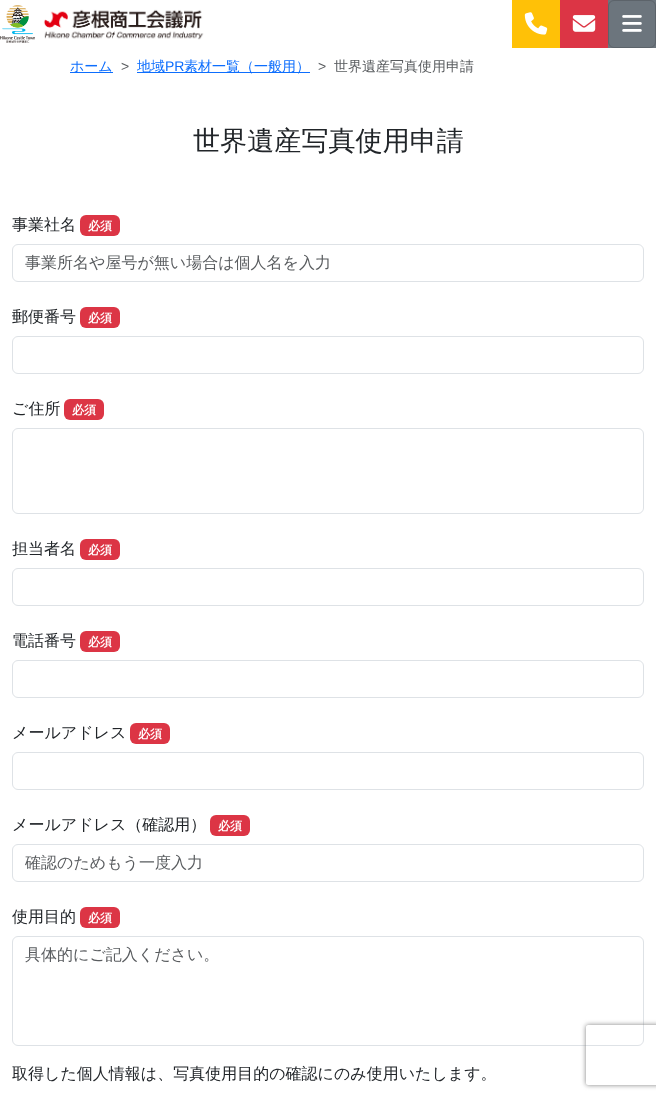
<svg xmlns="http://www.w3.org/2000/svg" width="656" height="1099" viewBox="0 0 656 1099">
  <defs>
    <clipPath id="clip1"><path d="M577 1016H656V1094H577ZM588 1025H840C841 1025 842 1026 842 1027V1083C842 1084 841 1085 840 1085H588C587 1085 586 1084 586 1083V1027C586 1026 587 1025 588 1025Z" clip-rule="evenodd"/></clipPath>
  </defs>
  <rect width="100%" height="100%" fill="rgb(255,255,255)"/>
  <image x="0" y="5" width="35" height="38" href="pic1.png"/>
  <image x="43" y="9" width="161" height="31" href="pic2.png"/>
  <rect x="512" y="0" width="48" height="48" fill="rgb(255,193,7)"/>
  <image x="524" y="12" width="24" height="23" href="pic3.png"/>
  <rect x="560" y="0" width="48" height="48" fill="rgb(220,53,69)"/>
  <image x="572" y="15" width="24" height="17" href="pic4.png"/>
  <rect x="608" y="0" width="48" height="48" fill="rgb(108,117,125)"/>
  <rect x="608.5" y="0.5" width="47" height="47" rx="5.5" fill="none" stroke="rgb(92,99,106)"/>
  <image x="622" y="15" width="20" height="17" href="pic5.png"/>
  <rect x="70" y="72" width="43" height="1" fill="rgb(13,110,253)"/>
  <text x="70" y="71" font-family="WenQuanYi Zen Hei" font-size="14" font-weight="500" fill="rgb(13,110,253)">ホーム</text>
  <text x="121" y="71" font-family="Liberation Sans" font-size="14" fill="rgb(89,92,95)">&gt;</text>
  <rect x="137" y="72" width="173" height="1" fill="rgb(13,110,253)"/>
  <text x="137" y="71" font-family="WenQuanYi Zen Hei" font-size="14" font-weight="500" fill="rgb(13,110,253)">地域</text>
  <text x="165" y="71" font-family="Liberation Sans" font-size="14" fill="rgb(13,110,253)">PR</text>
  <text x="184" y="71" font-family="WenQuanYi Zen Hei" font-size="14" font-weight="500" fill="rgb(13,110,253)">素材一覧（一般用）</text>
  <text x="318" y="71" font-family="Liberation Sans" font-size="14" fill="rgb(89,92,95)">&gt;</text>
  <text x="334" y="71" font-family="WenQuanYi Zen Hei" font-size="14" font-weight="500" fill="rgb(89,92,95)">世界遺産写真使用申請</text>
  <text x="193" y="150" font-family="WenQuanYi Zen Hei" font-size="27.1" font-weight="500" fill="rgb(33,37,41)">世界遺産写真使用申請</text>
  <text x="12" y="230" font-family="WenQuanYi Zen Hei" font-size="16" font-weight="500" fill="rgb(33,37,41)">事業社名</text>
  <rect x="80" y="215" width="40" height="21" rx="6" fill="rgb(220,53,69)"/>
  <text x="88" y="230" font-family="WenQuanYi Zen Hei" font-size="12" font-weight="bold" fill="rgb(255,255,255)">必須</text>
  <rect x="12.5" y="244.5" width="631" height="37" rx="5.5" fill="none" stroke="rgb(222,226,230)"/>
  <text x="25" y="268" font-family="WenQuanYi Zen Hei" font-size="16" font-weight="500" fill="rgb(89,92,95)">事業所名や屋号が無い場合は個人名を入力</text>
  <text x="12" y="322" font-family="WenQuanYi Zen Hei" font-size="16" font-weight="500" fill="rgb(33,37,41)">郵便番号</text>
  <rect x="80" y="307" width="40" height="21" rx="6" fill="rgb(220,53,69)"/>
  <text x="88" y="322" font-family="WenQuanYi Zen Hei" font-size="12" font-weight="bold" fill="rgb(255,255,255)">必須</text>
  <rect x="12.5" y="336.5" width="631" height="37" rx="5.5" fill="none" stroke="rgb(222,226,230)"/>
  <text x="12" y="414" font-family="WenQuanYi Zen Hei" font-size="16" font-weight="500" fill="rgb(33,37,41)">ご住所</text>
  <rect x="64" y="399" width="40" height="21" rx="6" fill="rgb(220,53,69)"/>
  <text x="72" y="414" font-family="WenQuanYi Zen Hei" font-size="12" font-weight="bold" fill="rgb(255,255,255)">必須</text>
  <rect x="12.5" y="428.5" width="631" height="85" rx="5.5" fill="none" stroke="rgb(222,226,230)"/>
  <text x="12" y="554" font-family="WenQuanYi Zen Hei" font-size="16" font-weight="500" fill="rgb(33,37,41)">担当者名</text>
  <rect x="80" y="539" width="40" height="21" rx="6" fill="rgb(220,53,69)"/>
  <text x="88" y="554" font-family="WenQuanYi Zen Hei" font-size="12" font-weight="bold" fill="rgb(255,255,255)">必須</text>
  <rect x="12.5" y="568.5" width="631" height="37" rx="5.5" fill="none" stroke="rgb(222,226,230)"/>
  <text x="12" y="646" font-family="WenQuanYi Zen Hei" font-size="16" font-weight="500" fill="rgb(33,37,41)">電話番号</text>
  <rect x="80" y="631" width="40" height="21" rx="6" fill="rgb(220,53,69)"/>
  <text x="88" y="646" font-family="WenQuanYi Zen Hei" font-size="12" font-weight="bold" fill="rgb(255,255,255)">必須</text>
  <rect x="12.5" y="660.5" width="631" height="37" rx="5.5" fill="none" stroke="rgb(222,226,230)"/>
  <text x="12" y="738" font-family="WenQuanYi Zen Hei" font-size="16" font-weight="500" fill="rgb(33,37,41)">メールアドレス</text>
  <rect x="130" y="723" width="40" height="21" rx="6" fill="rgb(220,53,69)"/>
  <text x="138" y="738" font-family="WenQuanYi Zen Hei" font-size="12" font-weight="bold" fill="rgb(255,255,255)">必須</text>
  <rect x="12.5" y="752.5" width="631" height="37" rx="5.5" fill="none" stroke="rgb(222,226,230)"/>
  <text x="12" y="830" font-family="WenQuanYi Zen Hei" font-size="16" font-weight="500" fill="rgb(33,37,41)">メールアドレス（確認用）</text>
  <rect x="210" y="815" width="40" height="21" rx="6" fill="rgb(220,53,69)"/>
  <text x="218" y="830" font-family="WenQuanYi Zen Hei" font-size="12" font-weight="bold" fill="rgb(255,255,255)">必須</text>
  <rect x="12.5" y="844.5" width="631" height="37" rx="5.5" fill="none" stroke="rgb(222,226,230)"/>
  <text x="25" y="868" font-family="WenQuanYi Zen Hei" font-size="16" font-weight="500" fill="rgb(89,92,95)">確認のためもう一度入力</text>
  <text x="12" y="922" font-family="WenQuanYi Zen Hei" font-size="16" font-weight="500" fill="rgb(33,37,41)">使用目的</text>
  <rect x="80" y="907" width="40" height="21" rx="6" fill="rgb(220,53,69)"/>
  <text x="88" y="922" font-family="WenQuanYi Zen Hei" font-size="12" font-weight="bold" fill="rgb(255,255,255)">必須</text>
  <rect x="12.5" y="936.5" width="631" height="109" rx="5.5" fill="none" stroke="rgb(222,226,230)"/>
  <text x="25" y="960" font-family="WenQuanYi Zen Hei" font-size="16" font-weight="500" fill="rgb(89,92,95)">具体的にご記入ください。</text>
  <text x="12" y="1079" font-family="WenQuanYi Zen Hei" font-size="16" font-weight="500" fill="rgb(33,37,41)">取得した個人情報は、写真使用目的の確認にのみ使用いたします。</text>
  <g clip-path="url(#clip1)">
    <rect x="586" y="1025" width="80" height="60" rx="2" fill="rgb(128,128,128)" filter="blur(2.5px)"/>
  </g>
</svg>
